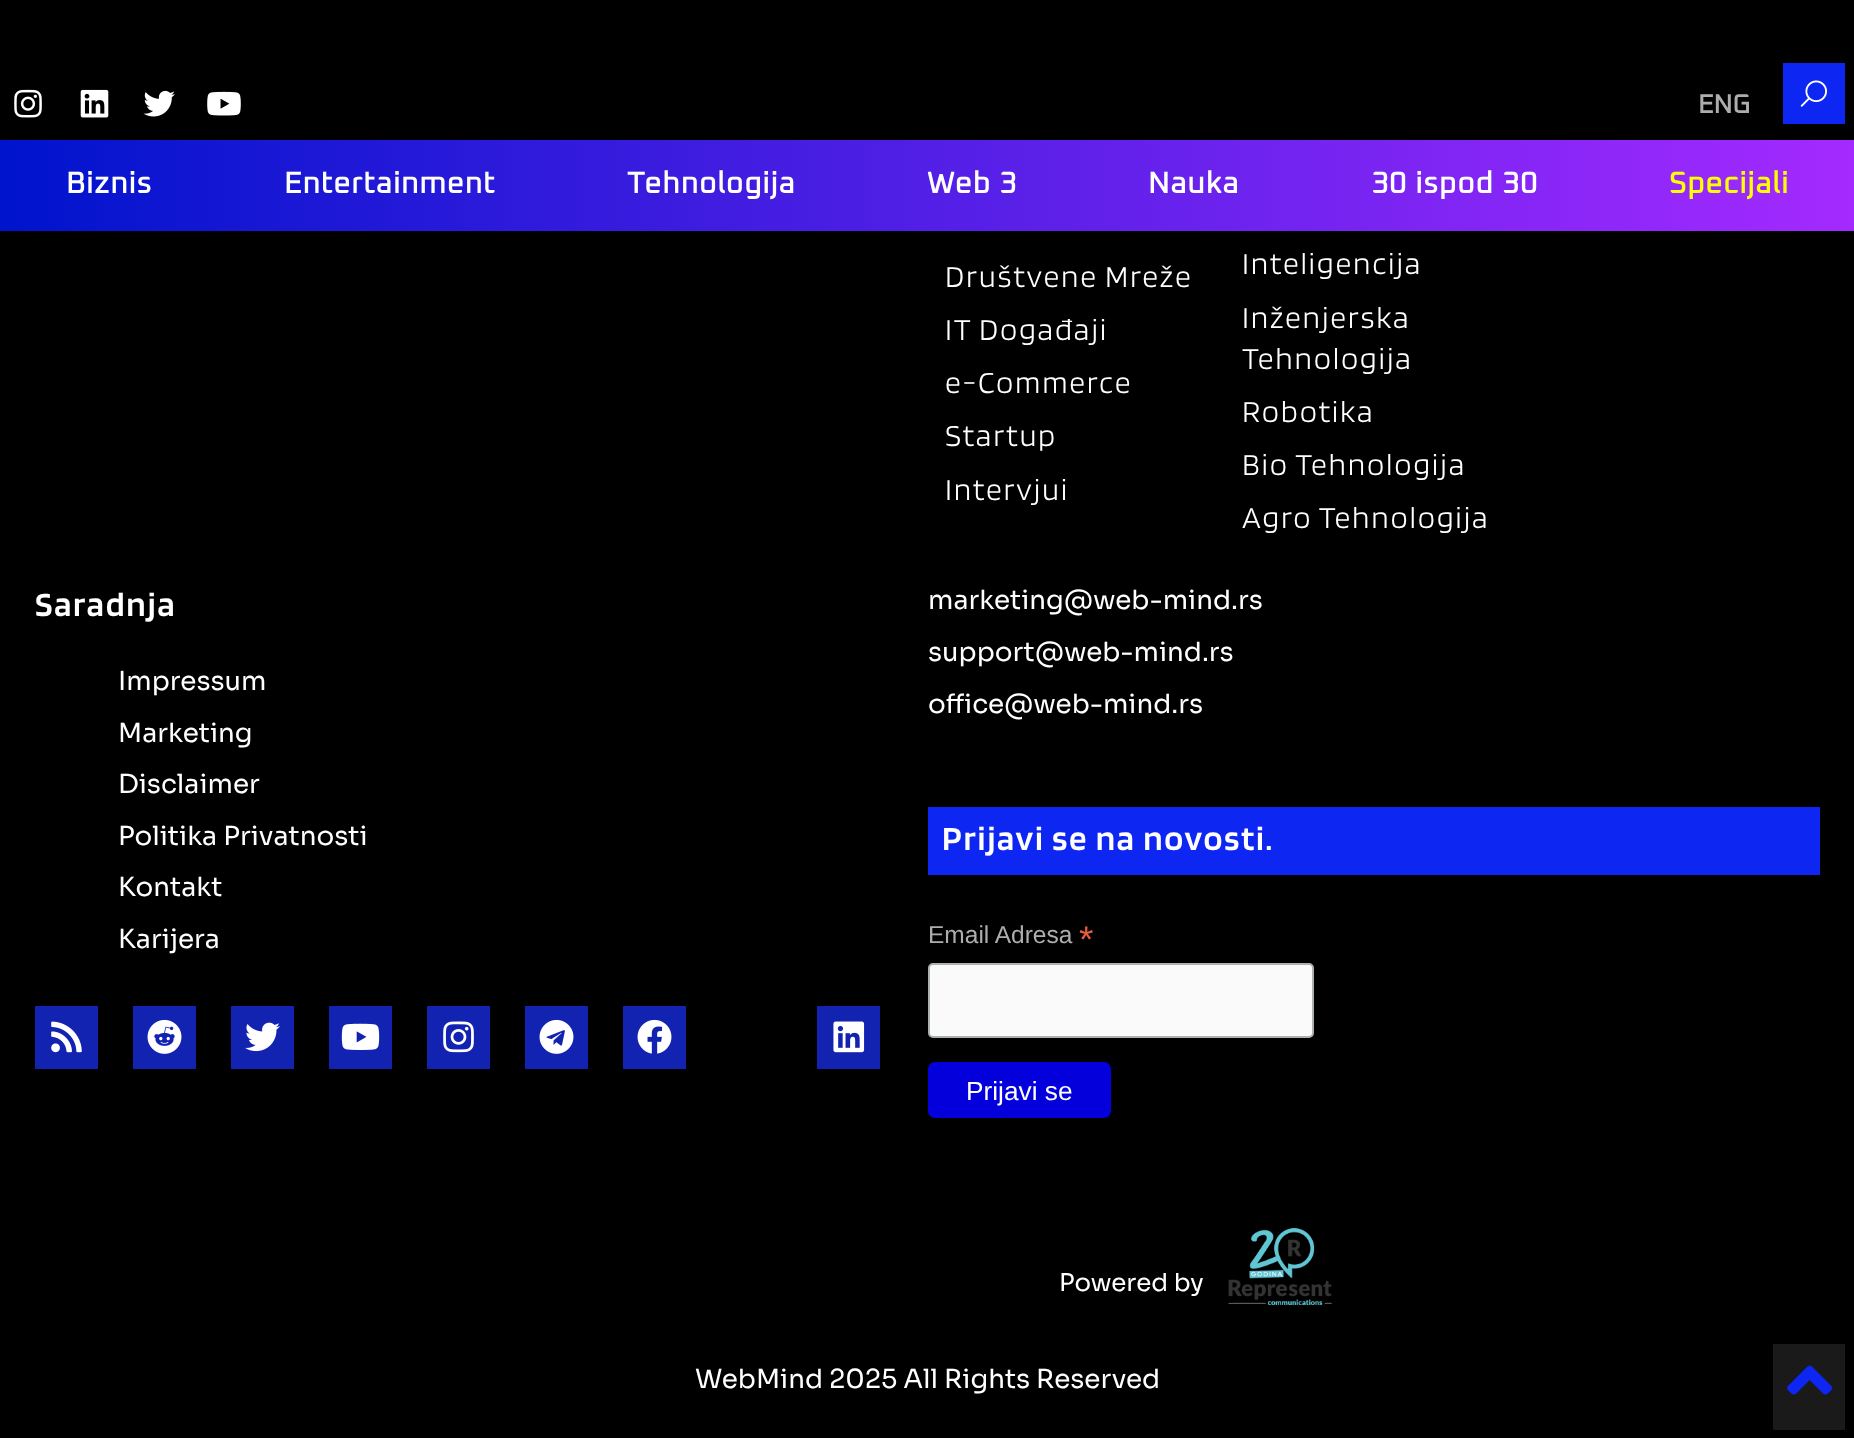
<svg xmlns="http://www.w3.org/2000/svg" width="1854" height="1438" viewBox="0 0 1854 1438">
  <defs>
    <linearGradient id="g1" gradientUnits="userSpaceOnUse" x1="0" y1="186" x2="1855" y2="185"><stop offset="0" stop-color="rgb(0,20,205)"/><stop offset="1" stop-color="rgb(164,42,255)"/></linearGradient>
  </defs>
  <rect width="100%" height="100%" fill="rgb(0,0,0)"/>
  <image x="14" y="89" width="28" height="29" href="pic1.png"/>
  <image x="80" y="89" width="29" height="29" href="pic2.png"/>
  <image x="143" y="90" width="32" height="27" href="pic3.png"/>
  <image x="207" y="91" width="34" height="25" href="pic4.png"/>
  <text x="1698" y="113" font-family="Oxanium" font-size="26.25" font-weight="bold" fill="rgb(173,173,173)">ENG</text>
  <rect x="1783" y="63" width="62" height="61" fill="rgb(13,38,242)"/>
  <image x="1800" y="80" width="27" height="27" href="pic5.png"/>
  <rect x="1773" y="1344" width="72" height="86" fill="rgb(26,26,26)"/>
  <image x="1787" y="1365" width="45" height="30" href="pic6.png"/>
  <rect x="0" y="140" width="1854" height="91" fill="url(#g1)"/>
  <g font-family="Oxanium" font-size="29.75" font-weight="bold" letter-spacing="0.9" fill="rgb(255,255,255)">
    <text x="66" y="193">Biznis</text>
    <text x="284" y="193">Entertainment</text>
    <text x="627" y="193">Tehnologija</text>
    <text x="927" y="193">Web 3</text>
    <text x="1148" y="193">Nauka</text>
    <text x="1371" y="193">30 ispod 30</text>
  </g>
  <text x="1669" y="193" font-family="Oxanium" font-size="29.75" font-weight="bold" letter-spacing="0.9" fill="rgb(255,255,0)">Specijali</text>
  <g font-family="Blinker" font-size="31.5" font-weight="200" letter-spacing="1.75" fill="rgb(255,255,255)">
    <text>
      <tspan x="945" y="287">Društvene Mreže</tspan>
      <tspan x="945" y="340">IT Događaji</tspan>
      <tspan x="945" y="393">e-Commerce</tspan>
      <tspan x="945" y="446">Startup</tspan>
      <tspan x="945" y="500">Intervjui</tspan>
    </text>
    <text>
      <tspan x="1242" y="274">Inteligencija</tspan>
      <tspan x="1242" y="328">Inženjerska</tspan>
      <tspan x="1242" y="369">Tehnologija</tspan>
      <tspan x="1242" y="422">Robotika</tspan>
      <tspan x="1242" y="475">Bio Tehnologija</tspan>
      <tspan x="1242" y="528">Agro Tehnologija</tspan>
    </text>
  </g>
  <text x="35" y="616" font-family="Blinker" font-size="35" font-weight="600" letter-spacing="1.75" fill="rgb(255,255,255)">Saradnja</text>
  <g font-family="Sora" font-size="26.25" fill="rgb(255,255,255)">
    <text>
      <tspan x="118" y="690">Impressum</tspan>
      <tspan x="118" y="742">Marketing</tspan>
      <tspan x="118" y="793">Disclaimer</tspan>
      <tspan x="118" y="845">Politika Privatnosti</tspan>
      <tspan x="118" y="896">Kontakt</tspan>
      <tspan x="118" y="948">Karijera</tspan>
    </text>
  </g>
  <rect x="35" y="1006" width="63" height="63" fill="rgb(18,35,178)"/>
  <image x="51" y="1021" width="31" height="32" href="pic7.png"/>
  <rect x="133" y="1006" width="63" height="63" fill="rgb(18,35,178)"/>
  <image x="147" y="1019" width="35" height="35" href="pic8.png"/>
  <rect x="231" y="1006" width="63" height="63" fill="rgb(18,35,178)"/>
  <image x="245" y="1022" width="35" height="30" href="pic9.png"/>
  <rect x="329" y="1006" width="63" height="63" fill="rgb(18,35,178)"/>
  <image x="341" y="1023" width="39" height="27" href="pic10.png"/>
  <rect x="427" y="1006" width="63" height="63" fill="rgb(18,35,178)"/>
  <image x="443" y="1021" width="31" height="32" href="pic11.png"/>
  <rect x="525" y="1006" width="63" height="63" fill="rgb(18,35,178)"/>
  <image x="539" y="1019" width="35" height="35" href="pic12.png"/>
  <rect x="623" y="1006" width="63" height="63" fill="rgb(18,35,178)"/>
  <image x="637" y="1019" width="35" height="35" href="pic13.png"/>
  <rect x="817" y="1006" width="63" height="63" fill="rgb(18,35,178)"/>
  <image x="833" y="1021" width="32" height="32" href="pic14.png"/>
  <g font-family="Sora" font-size="26.25" fill="rgb(255,255,255)">
    <text>
      <tspan x="928" y="609">marketing@web-mind.rs</tspan>
      <tspan x="928" y="661">support@web-mind.rs</tspan>
      <tspan x="928" y="713">office@web-mind.rs</tspan>
    </text>
  </g>
  <rect x="928" y="807" width="892" height="68" fill="rgb(13,38,242)"/>
  <text x="942" y="850" font-family="Blinker" font-size="35" font-weight="600" letter-spacing="1.75" fill="rgb(255,255,255)">Prijavi se na novosti.</text>
  <text x="928" y="943" font-family="Liberation Sans" font-size="24.5" fill="rgb(173,173,173)">Email Adresa</text>
  <text x="1079" y="952" font-family="Liberation Sans" font-size="37" fill="rgb(232,92,65)">*</text>
  <rect x="929" y="964" width="384" height="73" rx="4" fill="rgb(250,250,250)" stroke="rgb(171,176,178)" stroke-width="2"/>
  <rect x="928" y="1062" width="183" height="56" rx="7" fill="rgb(3,0,219)"/>
  <text x="966" y="1100" font-family="Liberation Sans" font-size="26.25" fill="rgb(255,255,255)">Prijavi se</text>
  <text x="1059" y="1291" font-family="Sora" font-size="24.5" fill="rgb(255,255,255)">Powered by</text>
  <image x="1228" y="1228" width="104" height="77" href="pic15.png"/>
  <text x="695" y="1388" font-family="Sora" font-size="26.25" fill="rgb(255,255,255)">WebMind 2025 All Rights Reserved</text>
</svg>
